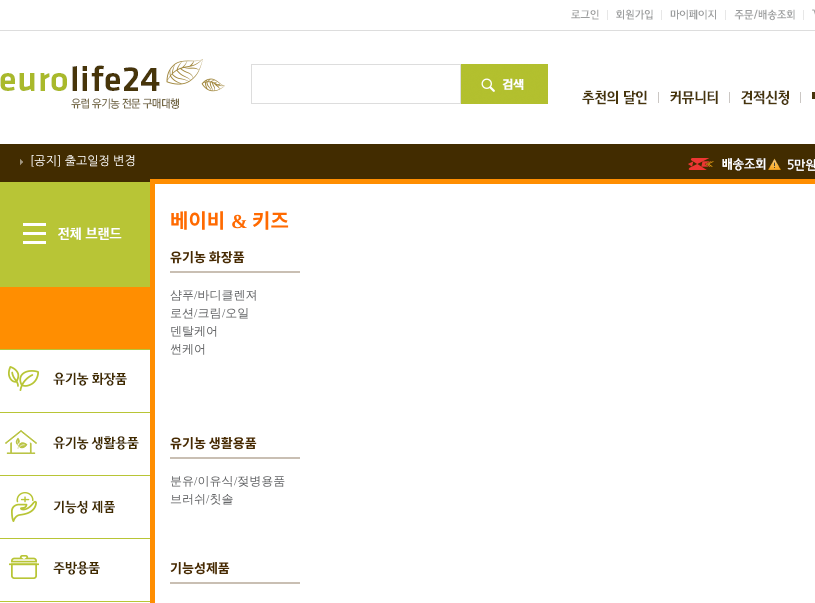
<svg xmlns="http://www.w3.org/2000/svg" width="815" height="603" viewBox="0 0 815 603">
  <rect width="100%" height="100%" fill="rgb(255,255,255)"/>
  <rect x="0" y="30" width="815" height="1" fill="rgb(221,221,221)"/>
  <image x="571" y="9" width="28" height="11" href="pic1.png"/>
  <rect x="607" y="10" width="1" height="10" fill="rgb(231,231,231)"/>
  <image x="616" y="9" width="37" height="11" href="pic2.png"/>
  <rect x="661" y="10" width="1" height="10" fill="rgb(231,231,231)"/>
  <image x="670" y="9" width="46" height="11" href="pic3.png"/>
  <rect x="725" y="10" width="1" height="10" fill="rgb(231,231,231)"/>
  <image x="734" y="9" width="61" height="12" href="pic4.png"/>
  <rect x="803" y="10" width="1" height="10" fill="rgb(231,231,231)"/>
  <image x="812" y="9" width="3" height="6" href="pic5.png"/>
  <image x="0" y="59" width="225" height="50" href="pic6.png"/>
  <rect x="251.5" y="64.5" width="209" height="39" fill="none" stroke="rgb(221,221,221)"/>
  <image x="461" y="64" width="87" height="40" href="pic7.png"/>
  <image x="582" y="90" width="65" height="15" href="pic8.png"/>
  <rect x="658" y="92" width="1" height="11" fill="rgb(203,199,196)"/>
  <image x="670" y="90" width="48" height="14" href="pic9.png"/>
  <rect x="729" y="92" width="1" height="11" fill="rgb(203,199,196)"/>
  <image x="741" y="90" width="48" height="15" href="pic10.png"/>
  <rect x="800" y="92" width="1" height="11" fill="rgb(203,199,196)"/>
  <rect x="812" y="92" width="3" height="7" fill="rgb(71,53,11)"/>
  <rect x="0" y="144" width="630" height="38" fill="rgb(66,44,0)"/>
  <image x="20" y="159" width="3" height="7" href="pic11.png"/>
  <text x="30" y="165" font-family="NanumGothic" font-size="12" fill="rgb(255,255,255)">[공지] 출고일정 변경</text>
  <rect x="630" y="144" width="185" height="35" fill="rgb(66,44,0)"/>
  <image x="688" y="158" width="78" height="13" href="pic12.png"/>
  <image x="768" y="158" width="47" height="13" href="pic13.png"/>
  <rect x="0" y="182" width="150" height="105" fill="rgb(184,197,54)"/>
  <image x="23" y="223" width="99" height="21" href="pic14.png"/>
  <rect x="0" y="287" width="150" height="62" fill="rgb(255,142,1)"/>
  <rect x="0" y="349" width="150" height="1" fill="rgb(184,197,54)"/>
  <rect x="0" y="412" width="150" height="1" fill="rgb(184,197,54)"/>
  <image x="8" y="366" width="119" height="25" href="pic15.png"/>
  <rect x="0" y="475" width="150" height="1" fill="rgb(184,197,54)"/>
  <image x="5" y="430" width="134" height="24" href="pic16.png"/>
  <rect x="0" y="538" width="150" height="1" fill="rgb(184,197,54)"/>
  <image x="11" y="492" width="104" height="30" href="pic17.png"/>
  <rect x="0" y="601" width="150" height="1" fill="rgb(184,197,54)"/>
  <image x="9" y="555" width="91" height="24" href="pic18.png"/>
  <rect x="152.5" y="181.5" width="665" height="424" fill="none" stroke="rgb(255,142,1)" stroke-width="5"/>
  <text x="170" y="228" font-family="Noto Sans KR" font-size="20" font-weight="bold" fill="rgb(255,106,1)">베이비</text>
  <text x="231" y="228" font-family="Liberation Serif" font-size="20" font-weight="bold" fill="rgb(255,106,1)">&amp;</text>
  <text x="252" y="228" font-family="Noto Sans KR" font-size="20" font-weight="bold" fill="rgb(255,106,1)">키즈</text>
  <rect x="170" y="271" width="130" height="2" fill="rgb(201,191,179)"/>
  <text x="170" y="262" font-family="Noto Sans KR" font-size="13" font-weight="bold" fill="rgb(70,41,1)">유기농 화장품</text>
  <text x="170" y="299" font-family="WenQuanYi Zen Hei" font-size="12" font-weight="500" fill="rgb(100,101,103)">샴푸 바디클렌져</text>
  <text x="194" y="299" font-family="Liberation Serif" font-size="12" fill="rgb(100,101,103)">/</text>
  <text x="170" y="317" font-family="WenQuanYi Zen Hei" font-size="12" font-weight="500" fill="rgb(100,101,103)">로션 크림 오일</text>
  <g font-family="Liberation Serif" font-size="12" fill="rgb(100,101,103)">
    <text x="194" y="317">/</text>
    <text x="222" y="317">/</text>
  </g>
  <g font-family="WenQuanYi Zen Hei" font-size="12" font-weight="500" fill="rgb(100,101,103)">
    <text>
      <tspan x="170" y="335">덴탈케어</tspan>
      <tspan x="170" y="353">썬케어</tspan>
    </text>
  </g>
  <rect x="170" y="457" width="130" height="2" fill="rgb(201,191,179)"/>
  <text x="170" y="448" font-family="Noto Sans KR" font-size="13" font-weight="bold" fill="rgb(70,41,1)">유기농 생활용품</text>
  <text x="170" y="485" font-family="WenQuanYi Zen Hei" font-size="12" font-weight="500" fill="rgb(100,101,103)">분유 이유식 젖병용품</text>
  <g font-family="Liberation Serif" font-size="12" fill="rgb(100,101,103)">
    <text x="194" y="485">/</text>
    <text x="234" y="485">/</text>
  </g>
  <text x="170" y="503" font-family="WenQuanYi Zen Hei" font-size="12" font-weight="500" fill="rgb(100,101,103)">브러쉬 칫솔</text>
  <text x="206" y="503" font-family="Liberation Serif" font-size="12" fill="rgb(100,101,103)">/</text>
  <rect x="170" y="582" width="130" height="2" fill="rgb(201,191,179)"/>
  <text x="170" y="573" font-family="Noto Sans KR" font-size="13" font-weight="bold" fill="rgb(70,41,1)">기능성제품</text>
</svg>
